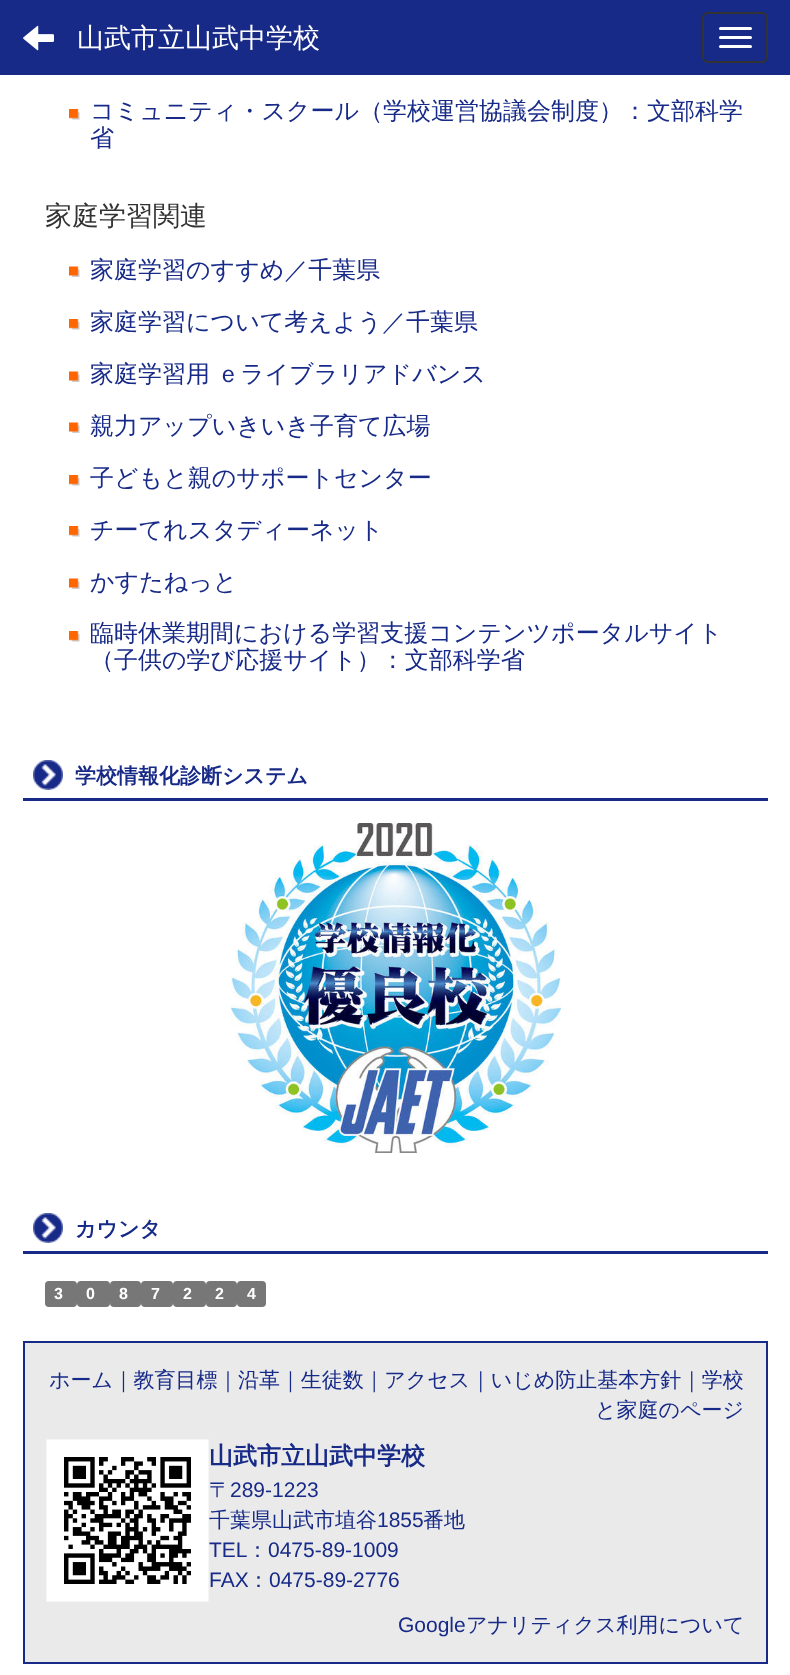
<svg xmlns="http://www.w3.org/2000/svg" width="790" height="1675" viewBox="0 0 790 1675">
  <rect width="100%" height="100%" fill="rgb(255,255,255)"/>
  <rect x="0" y="0" width="790" height="75" fill="rgb(23,42,136)"/>
  <image x="23" y="25" width="31" height="26" href="pic1.png"/>
  <text x="77" y="47" font-family="WenQuanYi Zen Hei" font-size="27" font-weight="500" fill="rgb(255,255,255)">山武市立山武中学校</text>
  <rect x="703" y="13" width="64" height="49" rx="5" fill="none" stroke="rgb(51,51,51)" stroke-width="2"/>
  <rect x="719" y="27" width="33" height="3" rx="1.5" fill="rgb(255,255,255)"/>
  <rect x="719" y="36" width="33" height="3" rx="1.5" fill="rgb(255,255,255)"/>
  <rect x="719" y="45" width="33" height="3" rx="1.5" fill="rgb(255,255,255)"/>
  <image x="69" y="109" width="11" height="11" href="pic2.png"/>
  <g font-family="WenQuanYi Zen Hei" font-size="24" font-weight="500" fill="rgb(23,42,136)">
    <text>
      <tspan x="90" y="119">コミュニティ・スクール（学校運営協議会制度）：文部科学</tspan>
      <tspan x="90" y="146">省</tspan>
    </text>
  </g>
  <text x="45" y="225" font-family="WenQuanYi Zen Hei" font-size="27" font-weight="500" fill="rgb(51,51,51)">家庭学習関連</text>
  <image x="69" y="266" width="11" height="11" href="pic3.png"/>
  <text x="90" y="278" font-family="WenQuanYi Zen Hei" font-size="24" font-weight="500" fill="rgb(23,42,136)">家庭学習のすすめ／千葉県</text>
  <image x="69" y="319" width="11" height="11" href="pic2.png"/>
  <text x="90" y="330" font-family="WenQuanYi Zen Hei" font-size="24" font-weight="500" fill="rgb(23,42,136)">家庭学習について考えよう／千葉県</text>
  <image x="69" y="371" width="11" height="11" href="pic3.png"/>
  <text x="90" y="382" word-spacing="-1" font-family="WenQuanYi Zen Hei" font-size="24" font-weight="500" fill="rgb(23,42,136)">家庭学習用 ｅライブラリアドバンス</text>
  <image x="69" y="422" width="11" height="11" href="pic3.png"/>
  <text x="90" y="434" font-family="WenQuanYi Zen Hei" font-size="24" font-weight="500" fill="rgb(23,42,136)">親力アップいきいき子育て広場</text>
  <image x="69" y="475" width="11" height="11" href="pic2.png"/>
  <text x="90" y="486" font-family="WenQuanYi Zen Hei" font-size="24" font-weight="500" fill="rgb(23,42,136)">子どもと親のサポートセンター</text>
  <image x="69" y="526" width="11" height="11" href="pic2.png"/>
  <text x="90" y="538" font-family="WenQuanYi Zen Hei" font-size="24" font-weight="500" fill="rgb(23,42,136)">チーてれスタディーネット</text>
  <image x="69" y="578" width="11" height="11" href="pic3.png"/>
  <text x="90" y="590" font-family="WenQuanYi Zen Hei" font-size="24" font-weight="500" fill="rgb(23,42,136)">かすたねっと</text>
  <image x="69" y="631" width="11" height="11" href="pic2.png"/>
  <g font-family="WenQuanYi Zen Hei" font-size="24" font-weight="500" fill="rgb(23,42,136)">
    <text>
      <tspan x="90" y="641">臨時休業期間における学習支援コンテンツポータルサイト</tspan>
      <tspan x="90" y="668">（子供の学び応援サイト）：文部科学省</tspan>
    </text>
  </g>
  <image x="33" y="760" width="30" height="30" href="pic4.png"/>
  <rect x="23" y="798" width="745" height="3" fill="rgb(23,42,136)"/>
  <text x="75" y="783" font-family="WenQuanYi Zen Hei" font-size="21" font-weight="bold" fill="rgb(23,42,136)">学校情報化診断システム</text>
  <image x="231" y="823" width="330" height="330" href="pic5.png"/>
  <image x="33" y="1213" width="30" height="30" href="pic4.png"/>
  <rect x="23" y="1251" width="745" height="3" fill="rgb(23,42,136)"/>
  <text x="75" y="1236" font-family="WenQuanYi Zen Hei" font-size="21" font-weight="bold" fill="rgb(23,42,136)">カウンタ</text>
  <rect x="45" y="1281" width="32" height="26" rx="4" fill="rgb(119,119,119)"/>
  <text x="54" y="1299" font-family="Liberation Sans" font-size="16" font-weight="bold" fill="rgb(255,255,255)">3</text>
  <rect x="77" y="1281" width="33" height="26" rx="4" fill="rgb(119,119,119)"/>
  <text x="86" y="1299" font-family="Liberation Sans" font-size="16" font-weight="bold" fill="rgb(255,255,255)">0</text>
  <rect x="110" y="1281" width="31" height="26" rx="4" fill="rgb(119,119,119)"/>
  <text x="119" y="1299" font-family="Liberation Sans" font-size="16" font-weight="bold" fill="rgb(255,255,255)">8</text>
  <rect x="141" y="1281" width="32" height="26" rx="4" fill="rgb(119,119,119)"/>
  <text x="151" y="1299" font-family="Liberation Sans" font-size="16" font-weight="bold" fill="rgb(255,255,255)">7</text>
  <rect x="173" y="1281" width="33" height="26" rx="4" fill="rgb(119,119,119)"/>
  <text x="183" y="1299" font-family="Liberation Sans" font-size="16" font-weight="bold" fill="rgb(255,255,255)">2</text>
  <rect x="206" y="1281" width="31" height="26" rx="4" fill="rgb(119,119,119)"/>
  <text x="215" y="1299" font-family="Liberation Sans" font-size="16" font-weight="bold" fill="rgb(255,255,255)">2</text>
  <rect x="237" y="1281" width="29" height="26" rx="4" fill="rgb(119,119,119)"/>
  <text x="247" y="1299" font-family="Liberation Sans" font-size="16" font-weight="bold" fill="rgb(255,255,255)">4</text>
  <rect x="24" y="1342" width="743" height="321" fill="rgb(234,234,234)" stroke="rgb(23,42,136)" stroke-width="2"/>
  <g font-family="WenQuanYi Zen Hei" font-size="21" font-weight="500" fill="rgb(23,42,136)">
    <text x="49" y="1387">ホーム｜教育目標｜沿革｜生徒数｜アクセス｜いじめ防止基本方針｜学校</text>
    <text x="595" y="1417">と家庭のページ</text>
  </g>
  <image x="46" y="1439" width="163" height="163" href="pic6.png"/>
  <text x="209" y="1464" font-family="WenQuanYi Zen Hei" font-size="24" font-weight="bold" fill="rgb(23,42,136)">山武市立山武中学校</text>
  <text x="209" y="1497" font-family="WenQuanYi Zen Hei" font-size="21" font-weight="500" fill="rgb(23,42,136)">〒</text>
  <text x="230" y="1497" font-family="Liberation Sans" font-size="21" fill="rgb(23,42,136)">289-1223</text>
  <text x="209" y="1527" font-family="WenQuanYi Zen Hei" font-size="21" font-weight="500" fill="rgb(23,42,136)">千葉県山武市埴谷</text>
  <text x="377" y="1527" font-family="Liberation Sans" font-size="21" fill="rgb(23,42,136)">1855</text>
  <text x="423" y="1527" font-family="WenQuanYi Zen Hei" font-size="21" font-weight="500" fill="rgb(23,42,136)">番地</text>
  <text x="209" y="1557" font-family="Liberation Sans" font-size="21" fill="rgb(23,42,136)">TEL</text>
  <text x="247" y="1557" font-family="WenQuanYi Zen Hei" font-size="21" font-weight="500" fill="rgb(23,42,136)">：</text>
  <g font-family="Liberation Sans" font-size="21" fill="rgb(23,42,136)">
    <text x="268" y="1557">0475-89-1009</text>
    <text x="209" y="1587">FAX</text>
  </g>
  <text x="248" y="1587" font-family="WenQuanYi Zen Hei" font-size="21" font-weight="500" fill="rgb(23,42,136)">：</text>
  <g font-family="Liberation Sans" font-size="21" fill="rgb(23,42,136)">
    <text x="269" y="1587">0475-89-2776</text>
    <text x="398" y="1632">Google</text>
  </g>
  <text x="466" y="1632" font-family="WenQuanYi Zen Hei" font-size="21" font-weight="500" fill="rgb(23,42,136)">アナリティクス利用について</text>
</svg>
